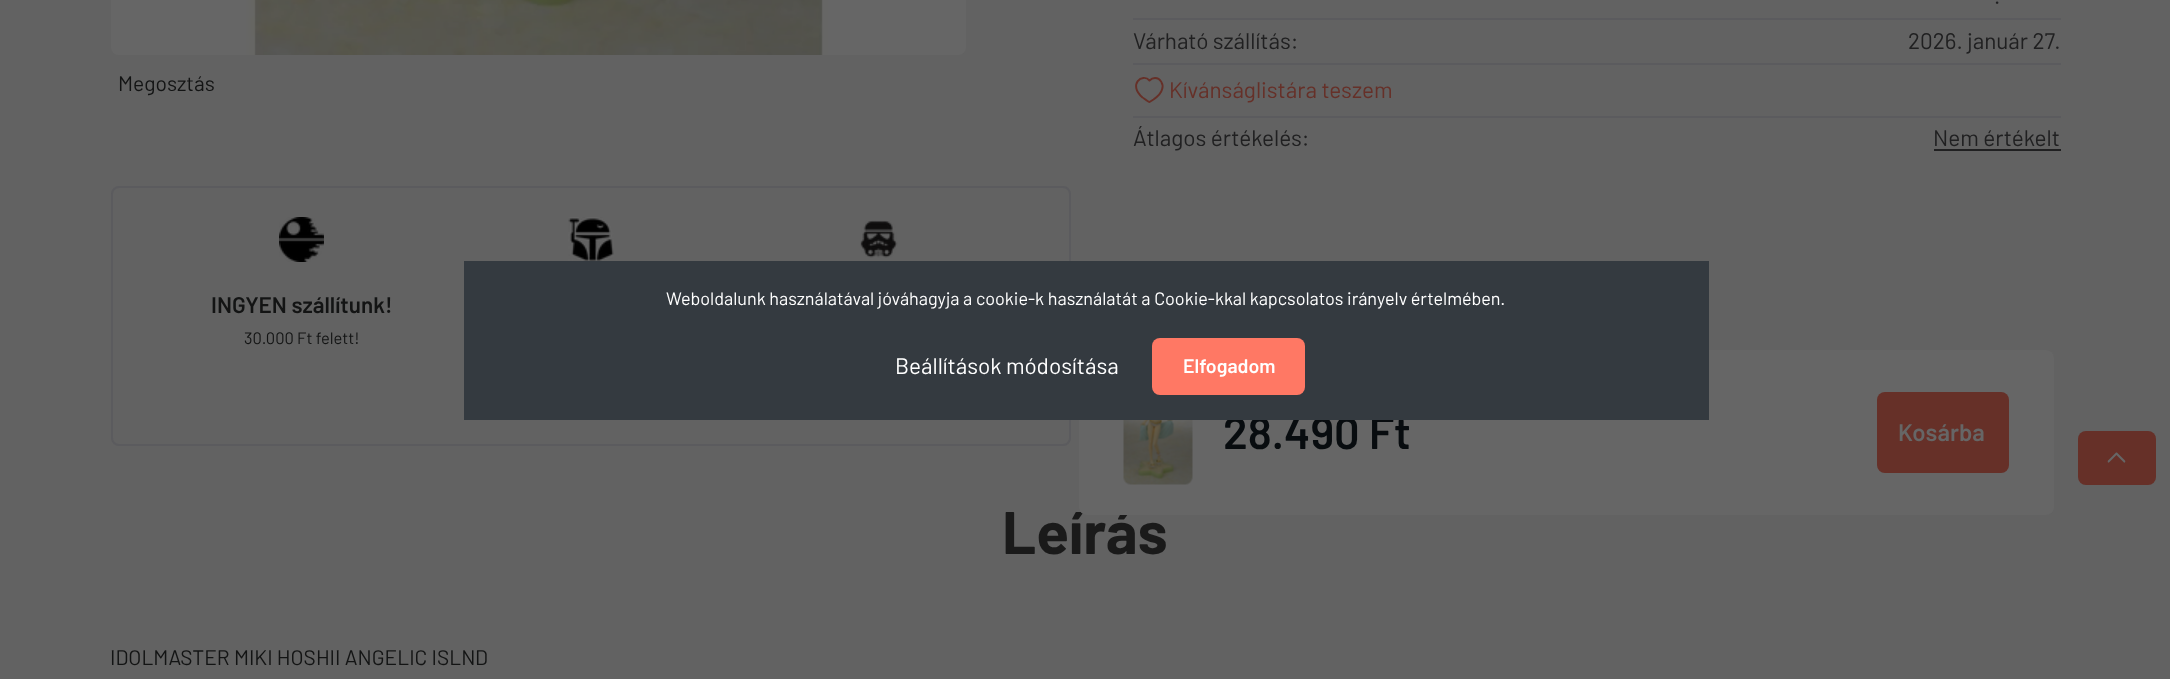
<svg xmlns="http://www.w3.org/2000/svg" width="2170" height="679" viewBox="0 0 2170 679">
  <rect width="100%" height="100%" fill="rgb(98,98,98)"/>
  <image x="111" y="0" width="855" height="55" href="pic1.png"/>
  <text x="118" y="91" font-family="Barlow" font-size="21" fill="rgb(19,20,20)">Megosztás</text>
  <rect x="112" y="187" width="958" height="258" rx="7" fill="none" stroke="rgb(91,91,94)" stroke-width="2"/>
  <image x="568" y="217" width="46" height="44" href="pic2.png"/>
  <image x="860" y="220" width="38" height="38" href="pic3.png"/>
  <image x="279" y="217" width="45" height="45" href="pic4.png"/>
  <text x="211" y="313" font-family="Barlow" font-size="22.5" font-weight="600" fill="rgb(19,20,20)">INGYEN szállítunk!</text>
  <text x="244" y="344" font-family="Barlow" font-size="16.5" fill="rgb(19,20,20)">30.000 Ft felett!</text>
  <g font-family="Barlow" font-size="22.5" fill="rgb(32,32,33)">
    <text x="1994" y="4">.</text>
    <text x="1133" y="49">Várható szállítás:</text>
  </g>
  <rect x="1133" y="18" width="928" height="2" fill="rgb(91,91,94)"/>
  <text x="1908" y="49" font-family="Barlow" font-size="22.5" fill="rgb(32,32,33)">2026. január 27.</text>
  <rect x="1133" y="63" width="928" height="2" fill="rgb(91,91,94)"/>
  <path d="M1155 78C1160.5 78 1164 84.5 1162 89.5C1161 94 1157 97 1153.5 99.5L1149.5 102C1148 102 1143.5 98 1142.5 97.5C1127.5 84.5 1142.5 72.5 1149.5 80.5C1150.5 79.5 1152 78 1155 78Z" fill="none" stroke="rgb(102,48,40)" stroke-width="1.9" stroke-linecap="round" stroke-linejoin="round"/>
  <text x="1169" y="98" font-family="Barlow" font-size="22.5" fill="rgb(102,48,40)">Kívánságlistára teszem</text>
  <text x="1133" y="146" font-family="Barlow" font-size="22.5" fill="rgb(32,32,33)">Átlagos értékelés:</text>
  <rect x="1133" y="116" width="928" height="2" fill="rgb(91,91,94)"/>
  <text x="1933" y="146" font-family="Barlow" font-size="22.5" fill="rgb(32,32,33)">Nem értékelt</text>
  <rect x="1934" y="149" width="127" height="2" fill="rgb(32,32,33)"/>
  <text x="1002" y="554" font-family="Barlow" font-size="60" font-weight="bold" fill="rgb(26,26,26)">Leírás</text>
  <rect x="1079" y="350" width="975" height="165" rx="8" fill="rgb(102,102,102)"/>
  <image x="1123" y="420" width="70" height="65" href="pic5.png"/>
  <text x="1223" y="449" font-family="Barlow" font-size="45" font-weight="600" fill="rgb(8,12,15)">28.490 Ft</text>
  <rect x="1877" y="392" width="132" height="81" rx="8" fill="rgb(102,48,40)"/>
  <text x="1898" y="441" font-family="Barlow" font-size="24" font-weight="600" fill="rgb(102,102,102)">Kosárba</text>
  <text x="110" y="665" font-family="Barlow" font-size="21" fill="rgb(19,20,20)">IDOLMASTER MIKI HOSHII ANGELIC ISLND</text>
  <rect x="2078" y="431" width="78" height="54" rx="8" fill="rgb(102,48,40)"/>
  <image x="2107" y="452" width="19" height="11" href="pic6.png"/>
  <rect x="464" y="261" width="1245" height="159" fill="rgb(52,58,64)"/>
  <text x="666" y="305" font-family="Barlow" font-size="18" fill="rgb(255,255,255)">Weboldalunk használatával jóváhagyja a cookie-k használatát a Cookie-kkal kapcsolatos irányelv értelmében.</text>
  <text x="895" y="374" font-family="Barlow" font-size="22.5" fill="rgb(255,255,255)">Beállítások módosítása</text>
  <rect x="1152" y="338" width="153" height="57" rx="8" fill="rgb(255,120,100)"/>
  <text x="1183" y="373" font-family="Barlow" font-size="19.5" font-weight="600" fill="rgb(255,255,255)">Elfogadom</text>
</svg>
